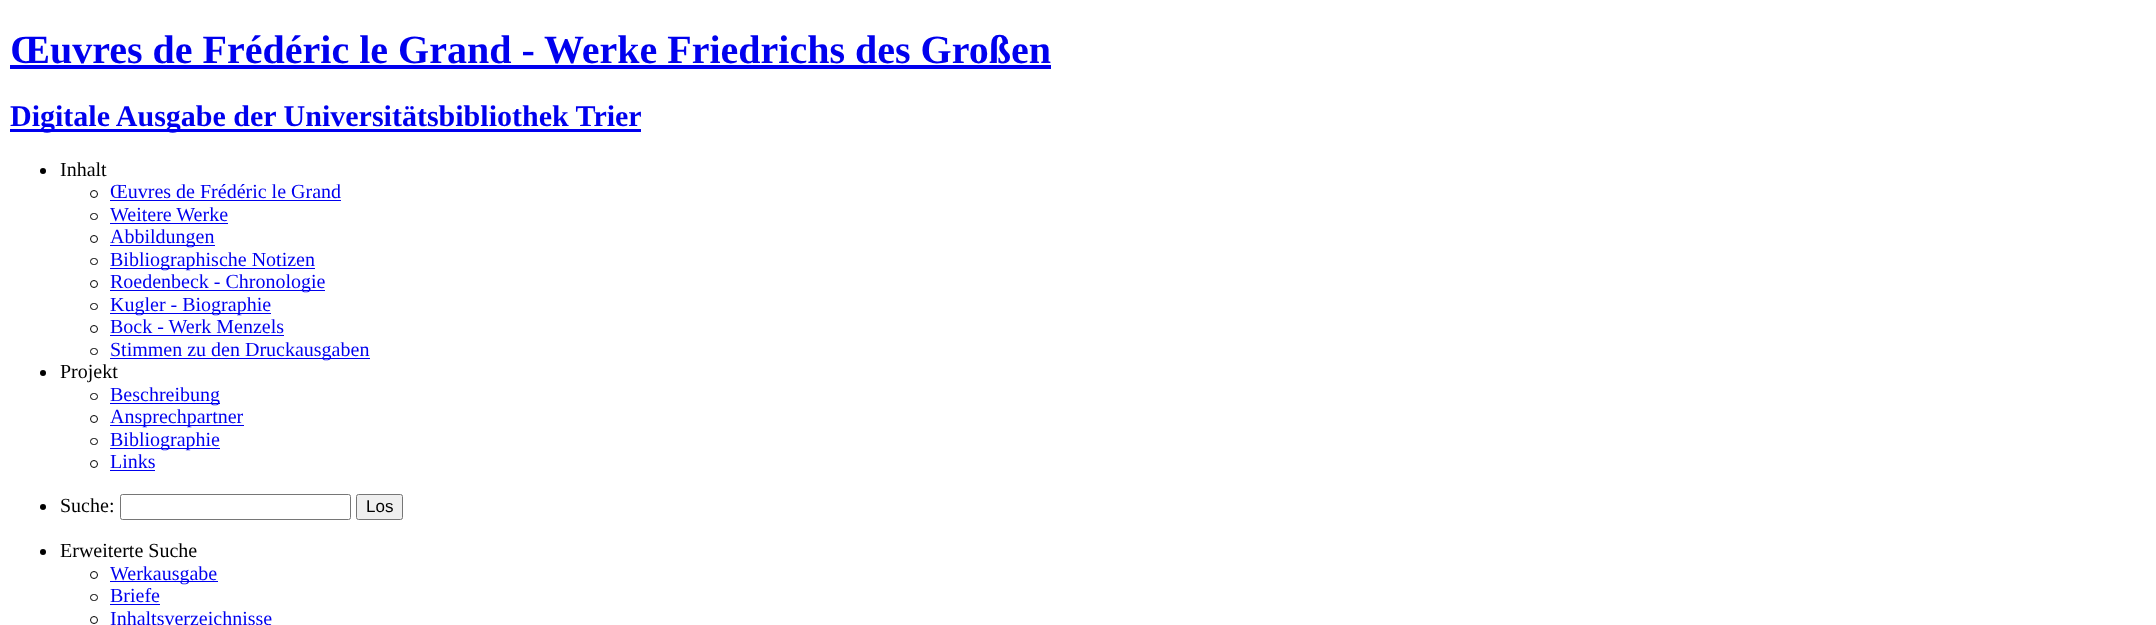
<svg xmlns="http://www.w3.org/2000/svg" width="2156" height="625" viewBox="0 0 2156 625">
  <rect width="100%" height="100%" fill="rgb(255,255,255)"/>
  <text x="10" y="63" font-family="Liberation Serif" font-size="40" font-weight="bold" fill="rgb(0,0,238)">Œuvres de Frédéric le Grand - Werke Friedrichs des Großen</text>
  <rect x="10" y="65" width="1041" height="4" fill="rgb(0,0,238)"/>
  <rect x="10" y="129" width="631" height="3" fill="rgb(0,0,238)"/>
  <text x="10" y="126" font-family="Liberation Serif" font-size="30" font-weight="bold" fill="rgb(0,0,238)">Digitale Ausgabe der Universitätsbibliothek Trier</text>
  <circle cx="43" cy="171" r="3" fill="rgb(0,0,0)"/>
  <text x="60" y="176" font-family="Liberation Serif" font-size="20" fill="rgb(0,0,0)">Inhalt</text>
  <circle cx="94" cy="194" r="3.5" fill="none" stroke="rgb(0,0,0)"/>
  <text x="110" y="198" font-family="Liberation Serif" font-size="20" fill="rgb(0,0,238)">Œuvres de Frédéric le Grand</text>
  <rect x="110" y="200" width="231" height="1" fill="rgb(0,0,238)"/>
  <rect x="90.5" y="213.5" width="7" height="6" rx="3" fill="none" stroke="rgb(0,0,0)"/>
  <text x="110" y="221" font-family="Liberation Serif" font-size="20" fill="rgb(0,0,238)">Weitere Werke</text>
  <rect x="110" y="223" width="118" height="1" fill="rgb(0,0,238)"/>
  <circle cx="94" cy="239" r="3.5" fill="none" stroke="rgb(0,0,0)"/>
  <rect x="110" y="245" width="105" height="1" fill="rgb(0,0,238)"/>
  <text x="110" y="243" font-family="Liberation Serif" font-size="20" fill="rgb(0,0,238)">Abbildungen</text>
  <rect x="90.5" y="258.5" width="7" height="6" rx="3" fill="none" stroke="rgb(0,0,0)"/>
  <rect x="110" y="268" width="205" height="1" fill="rgb(0,0,238)"/>
  <text x="110" y="266" font-family="Liberation Serif" font-size="20" fill="rgb(0,0,238)">Bibliographische Notizen</text>
  <circle cx="94" cy="284" r="3.5" fill="none" stroke="rgb(0,0,0)"/>
  <rect x="110" y="290" width="215" height="1" fill="rgb(0,0,238)"/>
  <text x="110" y="288" font-family="Liberation Serif" font-size="20" fill="rgb(0,0,238)">Roedenbeck - Chronologie</text>
  <rect x="90.5" y="303.5" width="7" height="6" rx="3" fill="none" stroke="rgb(0,0,0)"/>
  <rect x="110" y="313" width="161" height="1" fill="rgb(0,0,238)"/>
  <text x="110" y="311" font-family="Liberation Serif" font-size="20" fill="rgb(0,0,238)">Kugler - Biographie</text>
  <circle cx="94" cy="329" r="3.5" fill="none" stroke="rgb(0,0,0)"/>
  <text x="110" y="333" font-family="Liberation Serif" font-size="20" fill="rgb(0,0,238)">Bock - Werk Menzels</text>
  <rect x="110" y="335" width="174" height="1" fill="rgb(0,0,238)"/>
  <rect x="90.5" y="348.5" width="7" height="6" rx="3" fill="none" stroke="rgb(0,0,0)"/>
  <rect x="110" y="358" width="260" height="1" fill="rgb(0,0,238)"/>
  <text x="110" y="356" font-family="Liberation Serif" font-size="20" fill="rgb(0,0,238)">Stimmen zu den Druckausgaben</text>
  <circle cx="43" cy="373" r="3" fill="rgb(0,0,0)"/>
  <text x="60" y="378" font-family="Liberation Serif" font-size="20" fill="rgb(0,0,0)">Projekt</text>
  <rect x="90.5" y="393.5" width="7" height="6" rx="3" fill="none" stroke="rgb(0,0,0)"/>
  <rect x="110" y="403" width="110" height="1" fill="rgb(0,0,238)"/>
  <text x="110" y="401" font-family="Liberation Serif" font-size="20" fill="rgb(0,0,238)">Beschreibung</text>
  <circle cx="94" cy="419" r="3.5" fill="none" stroke="rgb(0,0,0)"/>
  <rect x="110" y="425" width="134" height="1" fill="rgb(0,0,238)"/>
  <text x="110" y="423" font-family="Liberation Serif" font-size="20" fill="rgb(0,0,238)">Ansprechpartner</text>
  <rect x="90.5" y="438.5" width="7" height="6" rx="3" fill="none" stroke="rgb(0,0,0)"/>
  <rect x="110" y="448" width="110" height="1" fill="rgb(0,0,238)"/>
  <text x="110" y="446" font-family="Liberation Serif" font-size="20" fill="rgb(0,0,238)">Bibliographie</text>
  <circle cx="94" cy="464" r="3.5" fill="none" stroke="rgb(0,0,0)"/>
  <text x="110" y="468" font-family="Liberation Serif" font-size="20" fill="rgb(0,0,238)">Links</text>
  <rect x="110" y="470" width="45" height="1" fill="rgb(0,0,238)"/>
  <circle cx="43" cy="507" r="3" fill="rgb(0,0,0)"/>
  <text x="60" y="512" font-family="Liberation Serif" font-size="20" fill="rgb(0,0,0)">Suche:</text>
  <rect x="120.5" y="494.5" width="230" height="25" rx="2" fill="none" stroke="rgb(118,118,118)"/>
  <rect x="356.5" y="494.5" width="46" height="25" rx="2" fill="rgb(239,239,239)" stroke="rgb(118,118,118)"/>
  <text x="366" y="512" font-family="Liberation Sans" font-size="17" fill="rgb(0,0,0)">Los</text>
  <circle cx="43" cy="552" r="3" fill="rgb(0,0,0)"/>
  <text x="60" y="557" font-family="Liberation Serif" font-size="20" fill="rgb(0,0,0)">Erweiterte Suche</text>
  <circle cx="94" cy="575" r="3.5" fill="none" stroke="rgb(0,0,0)"/>
  <rect x="110" y="581" width="108" height="1" fill="rgb(0,0,238)"/>
  <text x="110" y="580" font-family="Liberation Serif" font-size="20" fill="rgb(0,0,238)">Werkausgabe</text>
  <rect x="90.5" y="594.5" width="7" height="6" rx="3" fill="none" stroke="rgb(0,0,0)"/>
  <text x="110" y="602" font-family="Liberation Serif" font-size="20" fill="rgb(0,0,238)">Briefe</text>
  <rect x="110" y="604" width="50" height="1" fill="rgb(0,0,238)"/>
  <circle cx="94" cy="620" r="3.5" fill="none" stroke="rgb(0,0,0)"/>
  <text x="110" y="625" font-family="Liberation Serif" font-size="20" fill="rgb(0,0,238)">Inhaltsverzeichnisse</text>
</svg>
